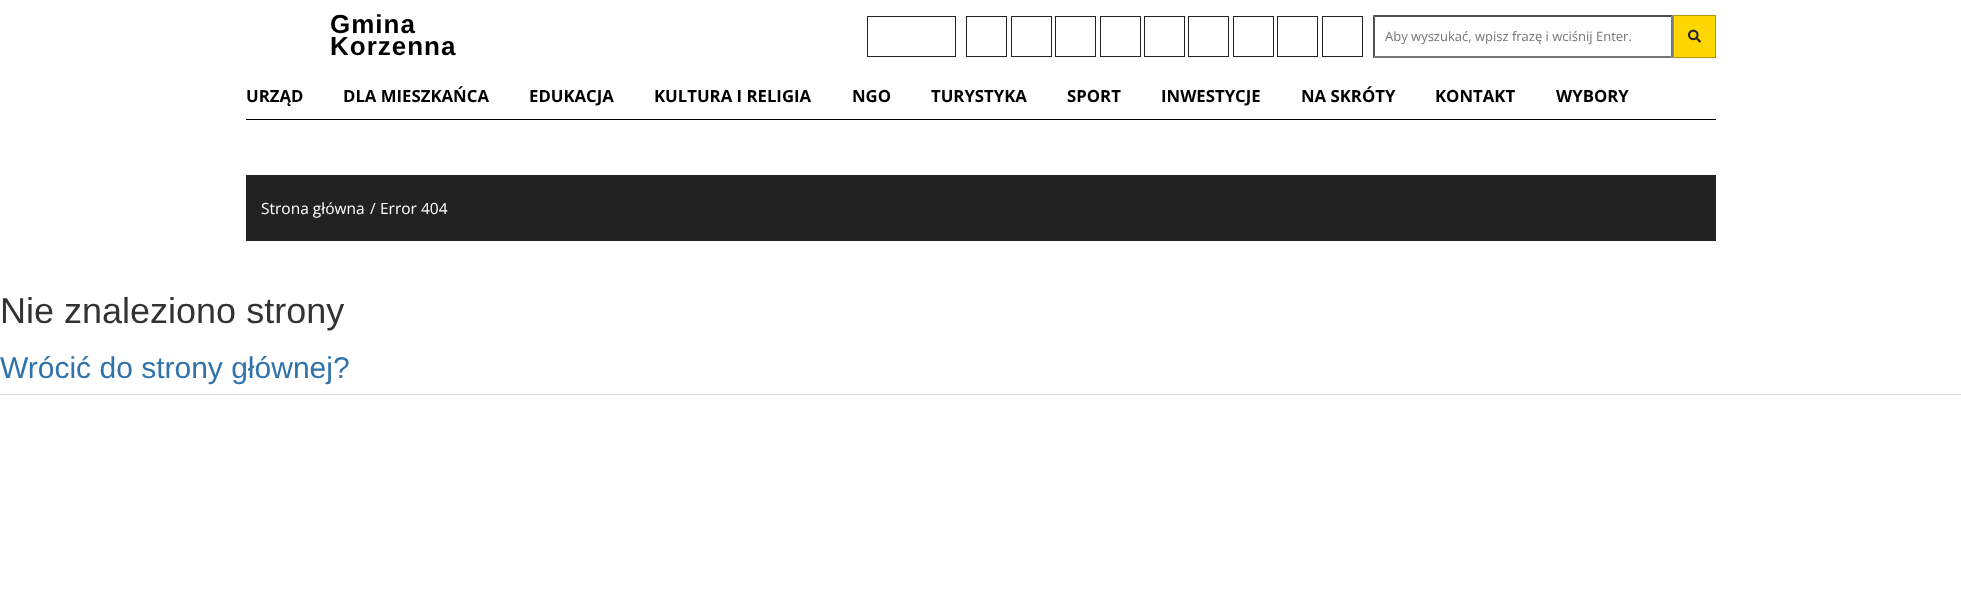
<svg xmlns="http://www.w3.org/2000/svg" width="1961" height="603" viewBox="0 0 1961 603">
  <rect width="100%" height="100%" fill="rgb(255,255,255)"/>
  <g font-family="Liberation Sans" font-size="26" font-weight="bold" letter-spacing="1" fill="rgb(0,0,0)">
    <text>
      <tspan x="330" y="33">Gmina</tspan>
      <tspan x="330" y="55">Korzenna</tspan>
    </text>
  </g>
  <rect x="867.5" y="16.5" width="88" height="40" fill="none" stroke="rgb(34,34,34)"/>
  <rect x="966.5" y="16.5" width="40" height="40" fill="none" stroke="rgb(34,34,34)"/>
  <rect x="1011.5" y="16.5" width="40" height="40" fill="none" stroke="rgb(34,34,34)"/>
  <rect x="1055.5" y="16.5" width="40" height="40" fill="none" stroke="rgb(34,34,34)"/>
  <rect x="1100.5" y="16.5" width="40" height="40" fill="none" stroke="rgb(34,34,34)"/>
  <rect x="1144.5" y="16.5" width="40" height="40" fill="none" stroke="rgb(34,34,34)"/>
  <rect x="1188.5" y="16.5" width="40" height="40" fill="none" stroke="rgb(34,34,34)"/>
  <rect x="1233.5" y="16.5" width="40" height="40" fill="none" stroke="rgb(34,34,34)"/>
  <rect x="1277.5" y="16.5" width="40" height="40" fill="none" stroke="rgb(34,34,34)"/>
  <rect x="1322.5" y="16.5" width="40" height="40" fill="none" stroke="rgb(34,34,34)"/>
  <path d="M1373 15H1673L1671 17H1375Z" fill="rgb(79,79,79)"/>
  <path d="M1673 15V58L1671 56V17Z" fill="rgb(118,118,118)"/>
  <path d="M1673 58H1373L1375 56H1671Z" fill="rgb(118,118,118)"/>
  <path d="M1373 58V15L1375 17V56Z" fill="rgb(79,79,79)"/>
  <text x="1385" y="41" font-family="Open Sans" font-size="13" fill="rgb(117,117,117)">Aby wyszukać, wpisz frazę i wciśnij Enter.</text>
  <rect x="1673.5" y="15.5" width="42" height="42" fill="rgb(255,215,0)" stroke="rgb(179,151,0)"/>
  <image x="1688" y="29" width="13" height="14" href="pic1.png"/>
  <rect x="246" y="119" width="1470" height="1" fill="rgb(0,0,0)"/>
  <g font-family="Open Sans" font-size="16.75" font-weight="bold" fill="rgb(0,0,0)">
    <text x="246" y="102">URZĄD</text>
    <text x="343" y="102">DLA MIESZKAŃCA</text>
    <text x="529" y="102">EDUKACJA</text>
    <text x="654" y="102">KULTURA I RELIGIA</text>
    <text x="852" y="102">NGO</text>
    <text x="931" y="102">TURYSTYKA</text>
    <text x="1067" y="102">SPORT</text>
    <text x="1161" y="102">INWESTYCJE</text>
    <text x="1301" y="102">NA SKRÓTY</text>
    <text x="1435" y="102">KONTAKT</text>
    <text x="1556" y="102">WYBORY</text>
  </g>
  <rect x="246" y="175" width="1470" height="66" fill="rgb(34,34,34)"/>
  <g font-family="Open Sans" font-size="15.5" fill="rgb(255,255,255)">
    <text x="261" y="214">Strona główna</text>
    <text x="370" y="214">/</text>
    <text x="380" y="214">Error 404</text>
  </g>
  <text x="0" y="323" font-family="Liberation Sans" font-size="36" fill="rgb(51,51,51)">Nie znaleziono strony</text>
  <text x="0" y="378" font-family="Liberation Sans" font-size="30" fill="rgb(48,114,171)">Wrócić do strony głównej?</text>
  <rect x="0" y="394" width="1961" height="1" fill="rgb(221,221,221)"/>
</svg>
